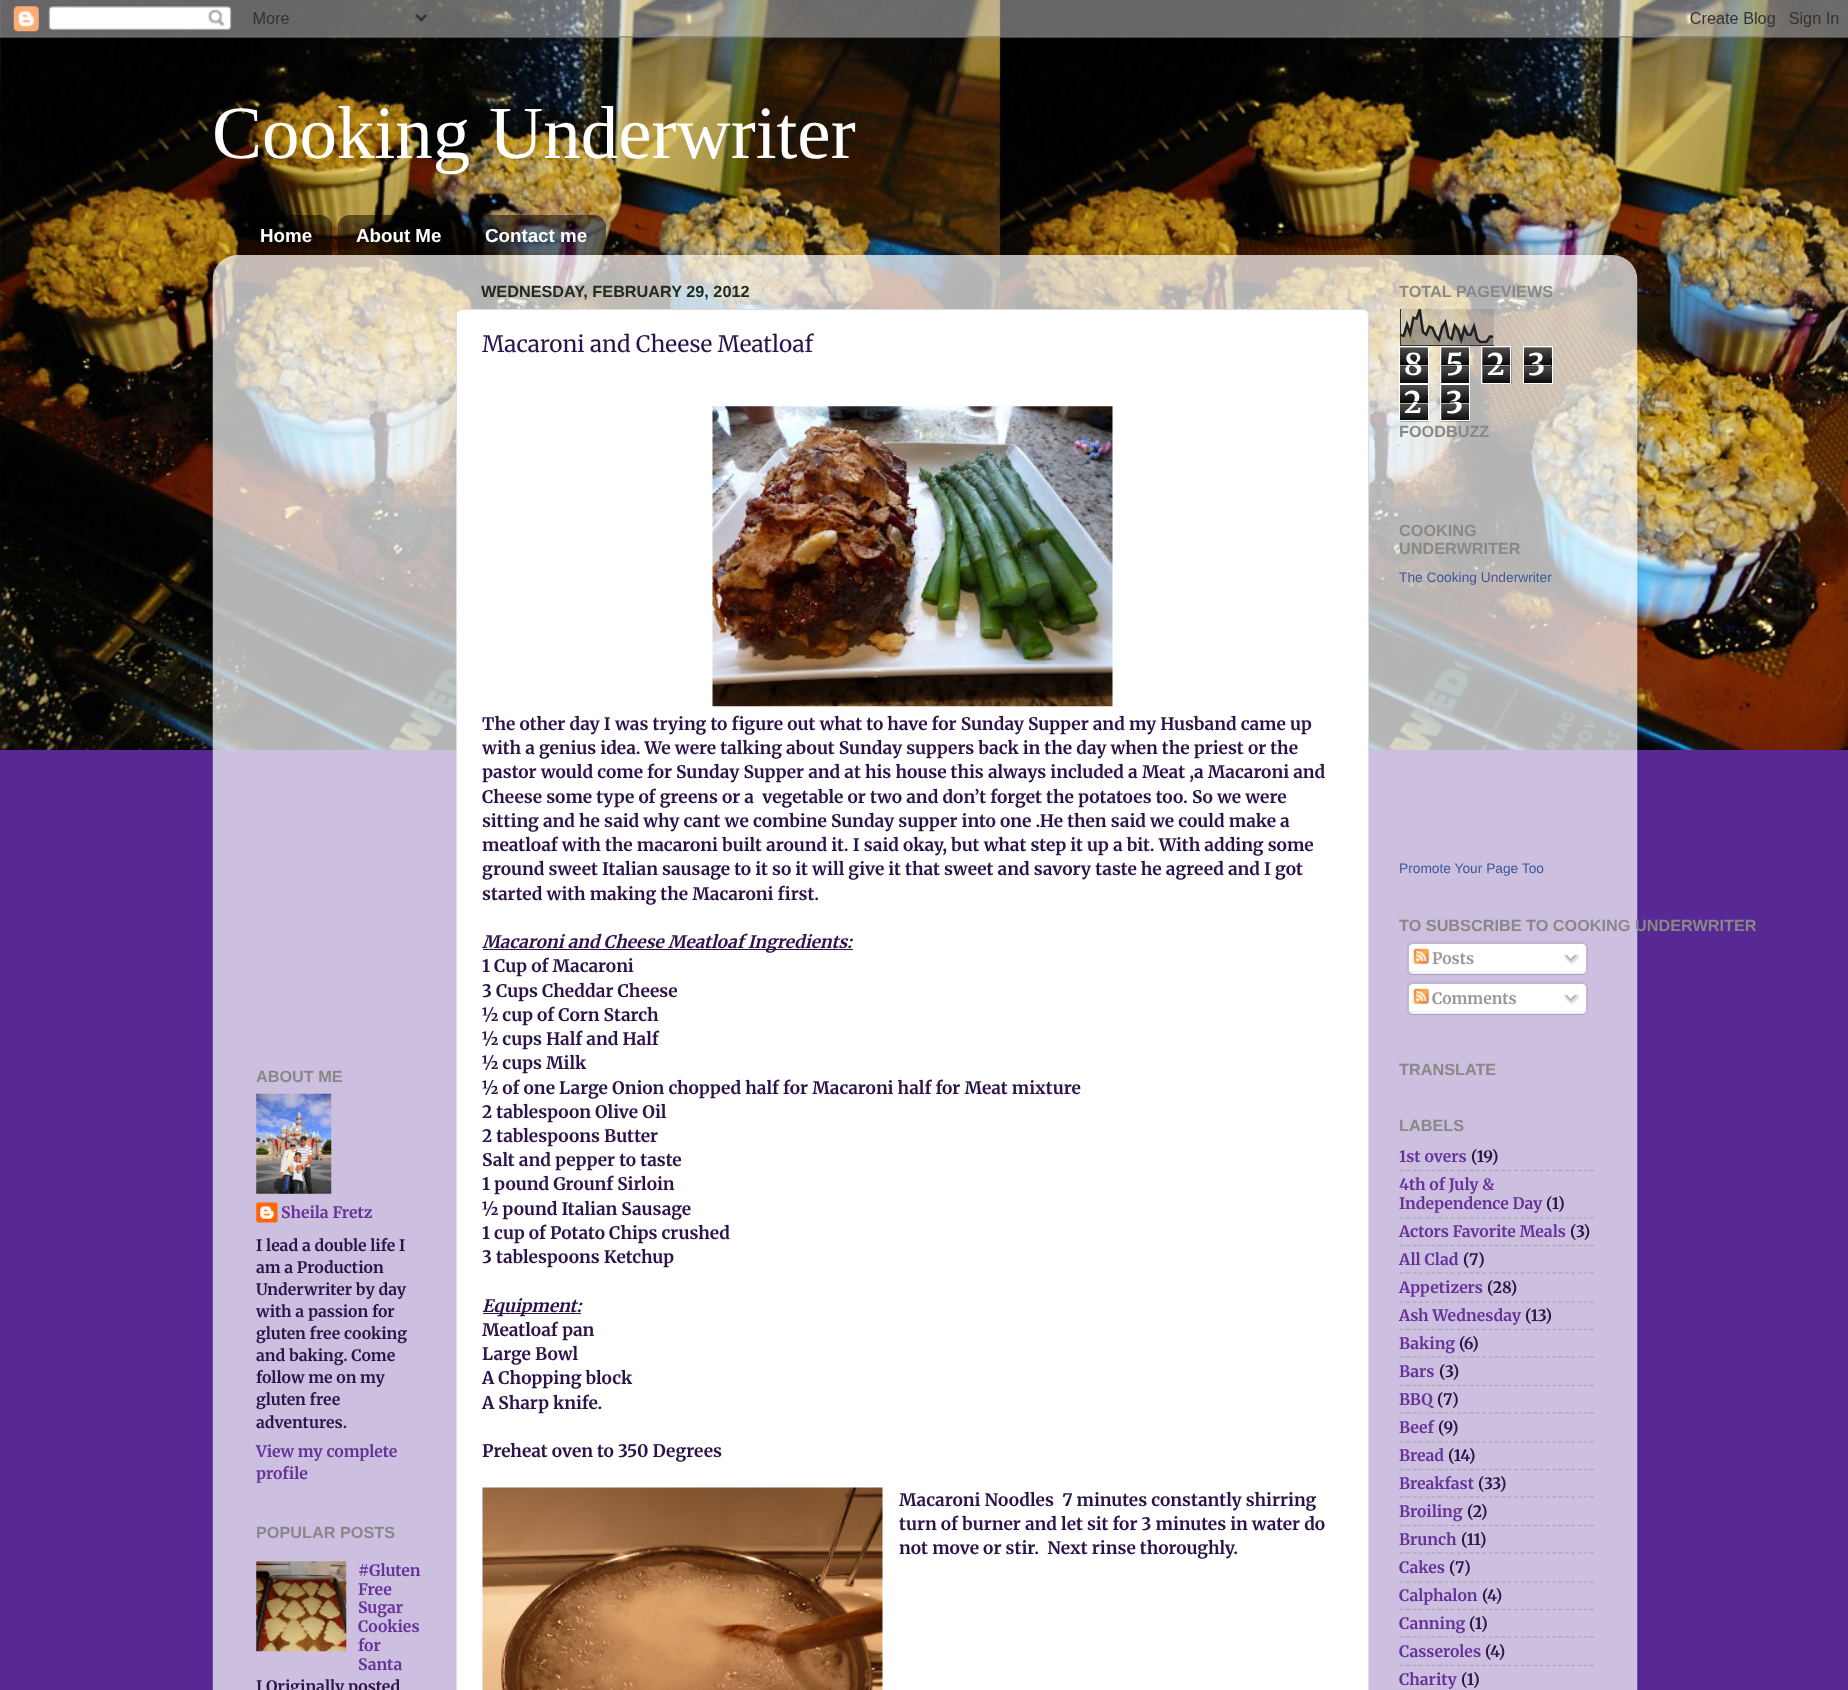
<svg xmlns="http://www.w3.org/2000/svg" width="1848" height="1690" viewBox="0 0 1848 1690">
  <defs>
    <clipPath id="clip1"><path d="M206 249H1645V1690H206ZM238 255H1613C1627 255 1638 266 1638 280V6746H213V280C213 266 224 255 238 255Z" clip-rule="evenodd"/></clipPath>
  </defs>
  <rect width="100%" height="100%" fill="rgb(88,41,149)"/>
  <image x="0" y="0" width="1848" height="750" href="pic1.png"/>
  <image x="0" y="0" width="1848" height="38" href="pic2.png"/>
  <text x="212" y="158" font-family="Liberation Serif" font-size="75" fill="rgb(255,255,255)">Cooking Underwriter</text>
  <image x="237" y="215" width="96" height="40" href="pic3.png"/>
  <text x="260" y="242" font-family="Liberation Sans" font-size="18.75" font-weight="bold" fill="rgb(255,255,255)">Home</text>
  <image x="337" y="215" width="124" height="40" href="pic4.png"/>
  <text x="356" y="242" font-family="Liberation Sans" font-size="18.75" font-weight="bold" fill="rgb(255,255,255)">About Me</text>
  <image x="466" y="215" width="141" height="40" href="pic5.png"/>
  <text x="485" y="242" font-family="Liberation Sans" font-size="18.75" font-weight="bold" fill="rgb(255,255,255)">Contact me</text>
  <g clip-path="url(#clip1)">
    <rect x="213" y="256" width="1425" height="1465" rx="25" fill="rgba(0,0,0,0.15)" filter="blur(2px)"/>
  </g>
  <image x="212" y="255" width="1426" height="1435" href="pic6.png"/>
  <text x="256" y="1082" font-family="Liberation Sans" font-size="16.25" font-weight="bold" fill="rgb(136,136,136)">ABOUT ME</text>
  <image x="256" y="1093" width="76" height="101" href="pic7.png"/>
  <image x="256" y="1202" width="22" height="21" href="pic8.png"/>
  <text x="281" y="1218" font-family="Merriweather" font-size="15.75" font-weight="bold" fill="rgb(102,51,153)">Sheila Fretz</text>
  <g font-family="Merriweather" font-size="15.75" font-weight="bold" fill="rgb(44,20,74)">
    <text>
      <tspan x="256" y="1251">I lead a double life I</tspan>
      <tspan x="256" y="1273">am a Production</tspan>
      <tspan x="256" y="1295">Underwriter by day</tspan>
      <tspan x="256" y="1317">with a passion for</tspan>
      <tspan x="256" y="1339">gluten free cooking</tspan>
      <tspan x="256" y="1361">and baking. Come</tspan>
      <tspan x="256" y="1383">follow me on my</tspan>
      <tspan x="256" y="1405">gluten free</tspan>
      <tspan x="256" y="1428">adventures.</tspan>
    </text>
  </g>
  <g font-family="Merriweather" font-size="15.75" font-weight="bold" fill="rgb(102,51,153)">
    <text>
      <tspan x="256" y="1457">View my complete</tspan>
      <tspan x="256" y="1479">profile</tspan>
    </text>
  </g>
  <text x="256" y="1538" font-family="Liberation Sans" font-size="16.25" font-weight="bold" fill="rgb(136,136,136)">POPULAR POSTS</text>
  <image x="256" y="1561" width="91" height="91" href="pic9.png"/>
  <g font-family="Merriweather" font-size="15.75" font-weight="bold" fill="rgb(102,51,153)">
    <text>
      <tspan x="358" y="1576">#Gluten</tspan>
      <tspan x="358" y="1595">Free</tspan>
      <tspan x="358" y="1613">Sugar</tspan>
      <tspan x="358" y="1632">Cookies</tspan>
      <tspan x="358" y="1651">for</tspan>
      <tspan x="358" y="1670">Santa</tspan>
    </text>
  </g>
  <text x="256" y="1692" font-family="Merriweather" font-size="15.75" font-weight="bold" fill="rgb(44,20,74)">I Originally posted</text>
  <text x="481" y="297" font-family="Liberation Sans" font-size="16.25" font-weight="bold" fill="rgb(34,42,26)">WEDNESDAY, FEBRUARY 29, 2012</text>
  <rect x="456.5" y="309.5" width="912" height="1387" rx="5.5" fill="rgb(255,255,255)" stroke="rgb(221,221,221)"/>
  <text x="482" y="352" font-family="Merriweather" font-size="22.5" fill="rgb(44,20,74)">Macaroni and Cheese Meatloaf</text>
  <image x="712" y="406" width="401" height="301" href="pic10.png"/>
  <g font-family="Merriweather" font-size="17.3" font-weight="bold" fill="rgb(44,20,74)">
    <text xml:space="preserve"><tspan x="482" y="730">The other day I was trying to figure out what to have for Sunday Supper and my Husband came up</tspan><tspan x="482" y="754">with a genius idea. We were talking about Sunday suppers back in the day when the priest or the</tspan><tspan x="482" y="778">pastor would come for Sunday Supper and at his house this always included a Meat ,a Macaroni and</tspan><tspan x="482" y="803">Cheese some type of greens or a  vegetable or two and don’t forget the potatoes too. So we were</tspan><tspan x="482" y="827">sitting and he said why cant we combine Sunday supper into one .He then said we could make a</tspan><tspan x="482" y="851">meatloaf with the macaroni built around it. I said okay, but what step it up a bit. With adding some</tspan><tspan x="482" y="875">ground sweet Italian sausage to it so it will give it that sweet and savory taste he agreed and I got</tspan><tspan x="482" y="900">started with making the Macaroni first.</tspan></text>
  </g>
  <rect x="483" y="949" width="370" height="1" fill="rgb(44,20,74)"/>
  <text x="482" y="948" font-family="Merriweather" font-size="17.3" font-weight="bold" font-style="italic" fill="rgb(44,20,74)">Macaroni and Cheese Meatloaf Ingredients:</text>
  <g font-family="Merriweather" font-size="17.3" font-weight="bold" fill="rgb(44,20,74)">
    <text>
      <tspan x="482" y="972">1 Cup of Macaroni</tspan>
      <tspan x="482" y="997">3 Cups Cheddar Cheese</tspan>
      <tspan x="482" y="1021">½ cup of Corn Starch</tspan>
      <tspan x="482" y="1045">½ cups Half and Half</tspan>
      <tspan x="482" y="1069">½ cups Milk</tspan>
      <tspan x="482" y="1094">½ of one Large Onion chopped half for Macaroni half for Meat mixture</tspan>
      <tspan x="482" y="1118">2 tablespoon Olive Oil</tspan>
      <tspan x="482" y="1142">2 tablespoons Butter</tspan>
      <tspan x="482" y="1166">Salt and pepper to taste</tspan>
      <tspan x="482" y="1190">1 pound Grounf Sirloin</tspan>
      <tspan x="482" y="1215">½ pound Italian Sausage</tspan>
      <tspan x="482" y="1239">1 cup of Potato Chips crushed</tspan>
      <tspan x="482" y="1263">3 tablespoons Ketchup</tspan>
    </text>
  </g>
  <rect x="483" y="1313" width="98" height="1" fill="rgb(44,20,74)"/>
  <text x="482" y="1312" font-family="Merriweather" font-size="17.3" font-weight="bold" font-style="italic" fill="rgb(44,20,74)">Equipment:</text>
  <g font-family="Merriweather" font-size="17.3" font-weight="bold" fill="rgb(44,20,74)">
    <text>
      <tspan x="482" y="1336">Meatloaf pan</tspan>
      <tspan x="482" y="1360">Large Bowl</tspan>
      <tspan x="482" y="1384">A Chopping block</tspan>
      <tspan x="482" y="1409">A Sharp knife.</tspan>
    </text>
    <text x="482" y="1457">Preheat oven to 350 Degrees</text>
  </g>
  <image x="482" y="1487" width="401" height="203" href="pic11.png"/>
  <g font-family="Merriweather" font-size="17.3" font-weight="bold" fill="rgb(44,20,74)">
    <text xml:space="preserve"><tspan x="899" y="1506">Macaroni Noodles  7 minutes constantly shirring</tspan><tspan x="899" y="1530">turn of burner and let sit for 3 minutes in water do</tspan><tspan x="899" y="1554">not move or stir.  Next rinse thoroughly.</tspan></text>
  </g>
  <text x="1399" y="297" font-family="Liberation Sans" font-size="16.25" font-weight="bold" fill="rgb(136,136,136)">TOTAL PAGEVIEWS</text>
  <image x="1400" y="309" width="94" height="37" href="pic12.png"/>
  <image x="1400" y="347" width="28" height="36" href="pic13.png"/>
  <rect x="1399.5" y="346.5" width="29" height="37" fill="none" stroke="rgb(255,255,255)"/>
  <text x="1404" y="375" font-family="Merriweather" font-size="30" font-weight="bold" fill="rgb(255,255,255)">8</text>
  <rect x="1400" y="364" width="28" height="1" fill="rgba(0,0,0,0.65)"/>
  <rect x="1400" y="365" width="28" height="1" fill="rgba(255,255,255,0.65)"/>
  <image x="1441" y="347" width="28" height="36" href="pic14.png"/>
  <rect x="1440.5" y="346.5" width="29" height="37" fill="none" stroke="rgb(255,255,255)"/>
  <text x="1446" y="375" font-family="Merriweather" font-size="30" font-weight="bold" fill="rgb(255,255,255)">5</text>
  <rect x="1441" y="364" width="28" height="1" fill="rgba(0,0,0,0.65)"/>
  <rect x="1441" y="365" width="28" height="1" fill="rgba(255,255,255,0.65)"/>
  <image x="1482" y="347" width="30" height="37" href="pic15.png"/>
  <rect x="1481.5" y="346.5" width="29" height="37" fill="none" stroke="rgb(255,255,255)"/>
  <text x="1487" y="375" font-family="Merriweather" font-size="30" font-weight="bold" fill="rgb(255,255,255)">2</text>
  <rect x="1483" y="364" width="27" height="1" fill="rgba(0,0,0,0.65)"/>
  <rect x="1483" y="365" width="27" height="1" fill="rgba(255,255,255,0.65)"/>
  <image x="1524" y="347" width="28" height="36" href="pic16.png"/>
  <rect x="1523.5" y="346.5" width="29" height="37" fill="none" stroke="rgb(255,255,255)"/>
  <text x="1528" y="375" font-family="Merriweather" font-size="30" font-weight="bold" fill="rgb(255,255,255)">3</text>
  <rect x="1524" y="364" width="27" height="1" fill="rgba(0,0,0,0.65)"/>
  <rect x="1524" y="365" width="27" height="1" fill="rgba(255,255,255,0.65)"/>
  <image x="1400" y="385" width="29" height="37" href="pic17.png"/>
  <rect x="1399.5" y="384.5" width="29" height="36" fill="none" stroke="rgb(255,255,255)"/>
  <text x="1404" y="413" font-family="Merriweather" font-size="30" font-weight="bold" fill="rgb(255,255,255)">2</text>
  <rect x="1400" y="401" width="28" height="1" fill="rgba(0,0,0,0.65)"/>
  <rect x="1400" y="403" width="28" height="1" fill="rgba(255,255,255,0.65)"/>
  <image x="1441" y="385" width="29" height="37" href="pic18.png"/>
  <rect x="1440.5" y="384.5" width="29" height="36" fill="none" stroke="rgb(255,255,255)"/>
  <text x="1446" y="413" font-family="Merriweather" font-size="30" font-weight="bold" fill="rgb(255,255,255)">3</text>
  <rect x="1441" y="401" width="28" height="1" fill="rgba(0,0,0,0.65)"/>
  <rect x="1441" y="403" width="28" height="1" fill="rgba(255,255,255,0.65)"/>
  <g font-family="Liberation Sans" font-size="16.25" font-weight="bold" fill="rgb(136,136,136)">
    <text x="1399" y="437">FOODBUZZ</text>
    <text>
      <tspan x="1399" y="536">COOKING</tspan>
      <tspan x="1399" y="554">UNDERWRITER</tspan>
    </text>
  </g>
  <g font-family="Liberation Sans" font-size="13.75" fill="rgb(59,89,152)">
    <text x="1399" y="582">The Cooking Underwriter</text>
    <text x="1399" y="873">Promote Your Page Too</text>
  </g>
  <text x="1399" y="931" font-family="Liberation Sans" font-size="16.25" font-weight="bold" fill="rgb(136,136,136)">TO SUBSCRIBE TO COOKING UNDERWRITER</text>
  <image x="1407" y="942" width="181" height="30" href="pic19.png"/>
  <image x="1413" y="948" width="16" height="16" href="pic20.png"/>
  <text x="1432" y="964" font-family="Merriweather" font-size="15.75" font-weight="bold" fill="rgb(153,153,153)">Posts</text>
  <image x="1564" y="954" width="16" height="11" href="pic21.png"/>
  <image x="1407" y="971" width="181" height="4" href="pic22.png"/>
  <image x="1407" y="982" width="181" height="30" href="pic19.png"/>
  <image x="1413" y="988" width="16" height="16" href="pic20.png"/>
  <text x="1432" y="1004" font-family="Merriweather" font-size="15.75" font-weight="bold" fill="rgb(153,153,153)">Comments</text>
  <image x="1564" y="994" width="16" height="11" href="pic21.png"/>
  <image x="1407" y="1011" width="181" height="4" href="pic22.png"/>
  <g font-family="Liberation Sans" font-size="16.25" font-weight="bold" fill="rgb(136,136,136)">
    <text x="1399" y="1075">TRANSLATE</text>
    <text x="1399" y="1131">LABELS</text>
  </g>
  <text x="1399" y="1162" font-family="Merriweather" font-size="15.75" font-weight="bold" fill="rgb(102,51,153)">1st overs</text>
  <text x="1471" y="1162" font-family="Merriweather" font-size="15.75" font-weight="bold" fill="rgb(44,20,74)">(19)</text>
  <path d="M1400 1170.5H1594" fill="none" stroke="rgb(167,160,176)" stroke-width="1.2" stroke-dasharray="3.75 2.59"/>
  <g font-family="Merriweather" font-size="15.75" font-weight="bold" fill="rgb(102,51,153)">
    <text>
      <tspan x="1399" y="1190">4th of July &amp;</tspan>
      <tspan x="1399" y="1209">Independence Day</tspan>
    </text>
  </g>
  <text x="1546" y="1209" font-family="Merriweather" font-size="15.75" font-weight="bold" fill="rgb(44,20,74)">(1)</text>
  <path d="M1400 1218H1594" fill="none" stroke="rgb(167,160,176)" stroke-width="1.2" stroke-dasharray="3.75 2.59"/>
  <text x="1399" y="1237" font-family="Merriweather" font-size="15.75" font-weight="bold" fill="rgb(102,51,153)">Actors Favorite Meals</text>
  <text x="1570" y="1237" font-family="Merriweather" font-size="15.75" font-weight="bold" fill="rgb(44,20,74)">(3)</text>
  <path d="M1400 1245.5H1594" fill="none" stroke="rgb(167,160,176)" stroke-width="1.2" stroke-dasharray="3.75 2.59"/>
  <text x="1399" y="1265" font-family="Merriweather" font-size="15.75" font-weight="bold" fill="rgb(102,51,153)">All Clad</text>
  <text x="1463" y="1265" font-family="Merriweather" font-size="15.75" font-weight="bold" fill="rgb(44,20,74)">(7)</text>
  <path d="M1400 1273H1594" fill="none" stroke="rgb(167,160,176)" stroke-width="1.2" stroke-dasharray="3.75 2.59"/>
  <text x="1399" y="1293" font-family="Merriweather" font-size="15.75" font-weight="bold" fill="rgb(102,51,153)">Appetizers</text>
  <text x="1487" y="1293" font-family="Merriweather" font-size="15.75" font-weight="bold" fill="rgb(44,20,74)">(28)</text>
  <path d="M1400 1302H1594" fill="none" stroke="rgb(167,160,176)" stroke-width="1.2" stroke-dasharray="3.75 2.59"/>
  <text x="1399" y="1321" font-family="Merriweather" font-size="15.75" font-weight="bold" fill="rgb(102,51,153)">Ash Wednesday</text>
  <text x="1525" y="1321" font-family="Merriweather" font-size="15.75" font-weight="bold" fill="rgb(44,20,74)">(13)</text>
  <path d="M1400 1329.5H1594" fill="none" stroke="rgb(167,160,176)" stroke-width="1.2" stroke-dasharray="3.75 2.59"/>
  <text x="1399" y="1349" font-family="Merriweather" font-size="15.75" font-weight="bold" fill="rgb(102,51,153)">Baking</text>
  <text x="1459" y="1349" font-family="Merriweather" font-size="15.75" font-weight="bold" fill="rgb(44,20,74)">(6)</text>
  <path d="M1400 1357H1594" fill="none" stroke="rgb(167,160,176)" stroke-width="1.2" stroke-dasharray="3.75 2.59"/>
  <text x="1399" y="1377" font-family="Merriweather" font-size="15.75" font-weight="bold" fill="rgb(102,51,153)">Bars</text>
  <text x="1439" y="1377" font-family="Merriweather" font-size="15.75" font-weight="bold" fill="rgb(44,20,74)">(3)</text>
  <path d="M1400 1385.5H1594" fill="none" stroke="rgb(167,160,176)" stroke-width="1.2" stroke-dasharray="3.75 2.59"/>
  <text x="1399" y="1405" font-family="Merriweather" font-size="15.75" font-weight="bold" fill="rgb(102,51,153)">BBQ</text>
  <text x="1437" y="1405" font-family="Merriweather" font-size="15.75" font-weight="bold" fill="rgb(44,20,74)">(7)</text>
  <path d="M1400 1413H1594" fill="none" stroke="rgb(167,160,176)" stroke-width="1.2" stroke-dasharray="3.75 2.59"/>
  <text x="1399" y="1433" font-family="Merriweather" font-size="15.75" font-weight="bold" fill="rgb(102,51,153)">Beef</text>
  <text x="1438" y="1433" font-family="Merriweather" font-size="15.75" font-weight="bold" fill="rgb(44,20,74)">(9)</text>
  <path d="M1400 1442H1594" fill="none" stroke="rgb(167,160,176)" stroke-width="1.2" stroke-dasharray="3.75 2.59"/>
  <text x="1399" y="1461" font-family="Merriweather" font-size="15.75" font-weight="bold" fill="rgb(102,51,153)">Bread</text>
  <text x="1448" y="1461" font-family="Merriweather" font-size="15.75" font-weight="bold" fill="rgb(44,20,74)">(14)</text>
  <path d="M1400 1469.5H1594" fill="none" stroke="rgb(167,160,176)" stroke-width="1.2" stroke-dasharray="3.75 2.59"/>
  <text x="1399" y="1489" font-family="Merriweather" font-size="15.75" font-weight="bold" fill="rgb(102,51,153)">Breakfast</text>
  <text x="1478" y="1489" font-family="Merriweather" font-size="15.75" font-weight="bold" fill="rgb(44,20,74)">(33)</text>
  <path d="M1400 1497H1594" fill="none" stroke="rgb(167,160,176)" stroke-width="1.2" stroke-dasharray="3.75 2.59"/>
  <text x="1399" y="1517" font-family="Merriweather" font-size="15.75" font-weight="bold" fill="rgb(102,51,153)">Broiling</text>
  <text x="1467" y="1517" font-family="Merriweather" font-size="15.75" font-weight="bold" fill="rgb(44,20,74)">(2)</text>
  <path d="M1400 1525.5H1594" fill="none" stroke="rgb(167,160,176)" stroke-width="1.2" stroke-dasharray="3.75 2.59"/>
  <text x="1399" y="1545" font-family="Merriweather" font-size="15.75" font-weight="bold" fill="rgb(102,51,153)">Brunch</text>
  <text x="1461" y="1545" font-family="Merriweather" font-size="15.75" font-weight="bold" fill="rgb(44,20,74)">(11)</text>
  <path d="M1400 1553H1594" fill="none" stroke="rgb(167,160,176)" stroke-width="1.2" stroke-dasharray="3.75 2.59"/>
  <text x="1399" y="1573" font-family="Merriweather" font-size="15.75" font-weight="bold" fill="rgb(102,51,153)">Cakes</text>
  <text x="1449" y="1573" font-family="Merriweather" font-size="15.75" font-weight="bold" fill="rgb(44,20,74)">(7)</text>
  <path d="M1400 1582H1594" fill="none" stroke="rgb(167,160,176)" stroke-width="1.2" stroke-dasharray="3.75 2.59"/>
  <text x="1399" y="1601" font-family="Merriweather" font-size="15.75" font-weight="bold" fill="rgb(102,51,153)">Calphalon</text>
  <text x="1482" y="1601" font-family="Merriweather" font-size="15.75" font-weight="bold" fill="rgb(44,20,74)">(4)</text>
  <path d="M1400 1609.5H1594" fill="none" stroke="rgb(167,160,176)" stroke-width="1.2" stroke-dasharray="3.75 2.59"/>
  <text x="1399" y="1629" font-family="Merriweather" font-size="15.75" font-weight="bold" fill="rgb(102,51,153)">Canning</text>
  <text x="1469" y="1629" font-family="Merriweather" font-size="15.75" font-weight="bold" fill="rgb(44,20,74)">(1)</text>
  <path d="M1400 1637H1594" fill="none" stroke="rgb(167,160,176)" stroke-width="1.2" stroke-dasharray="3.75 2.59"/>
  <text x="1399" y="1657" font-family="Merriweather" font-size="15.75" font-weight="bold" fill="rgb(102,51,153)">Casseroles</text>
  <text x="1485" y="1657" font-family="Merriweather" font-size="15.75" font-weight="bold" fill="rgb(44,20,74)">(4)</text>
  <path d="M1400 1665.5H1594" fill="none" stroke="rgb(167,160,176)" stroke-width="1.2" stroke-dasharray="3.75 2.59"/>
  <text x="1399" y="1685" font-family="Merriweather" font-size="15.75" font-weight="bold" fill="rgb(102,51,153)">Charity</text>
  <text x="1461" y="1685" font-family="Merriweather" font-size="15.75" font-weight="bold" fill="rgb(44,20,74)">(1)</text>
</svg>
